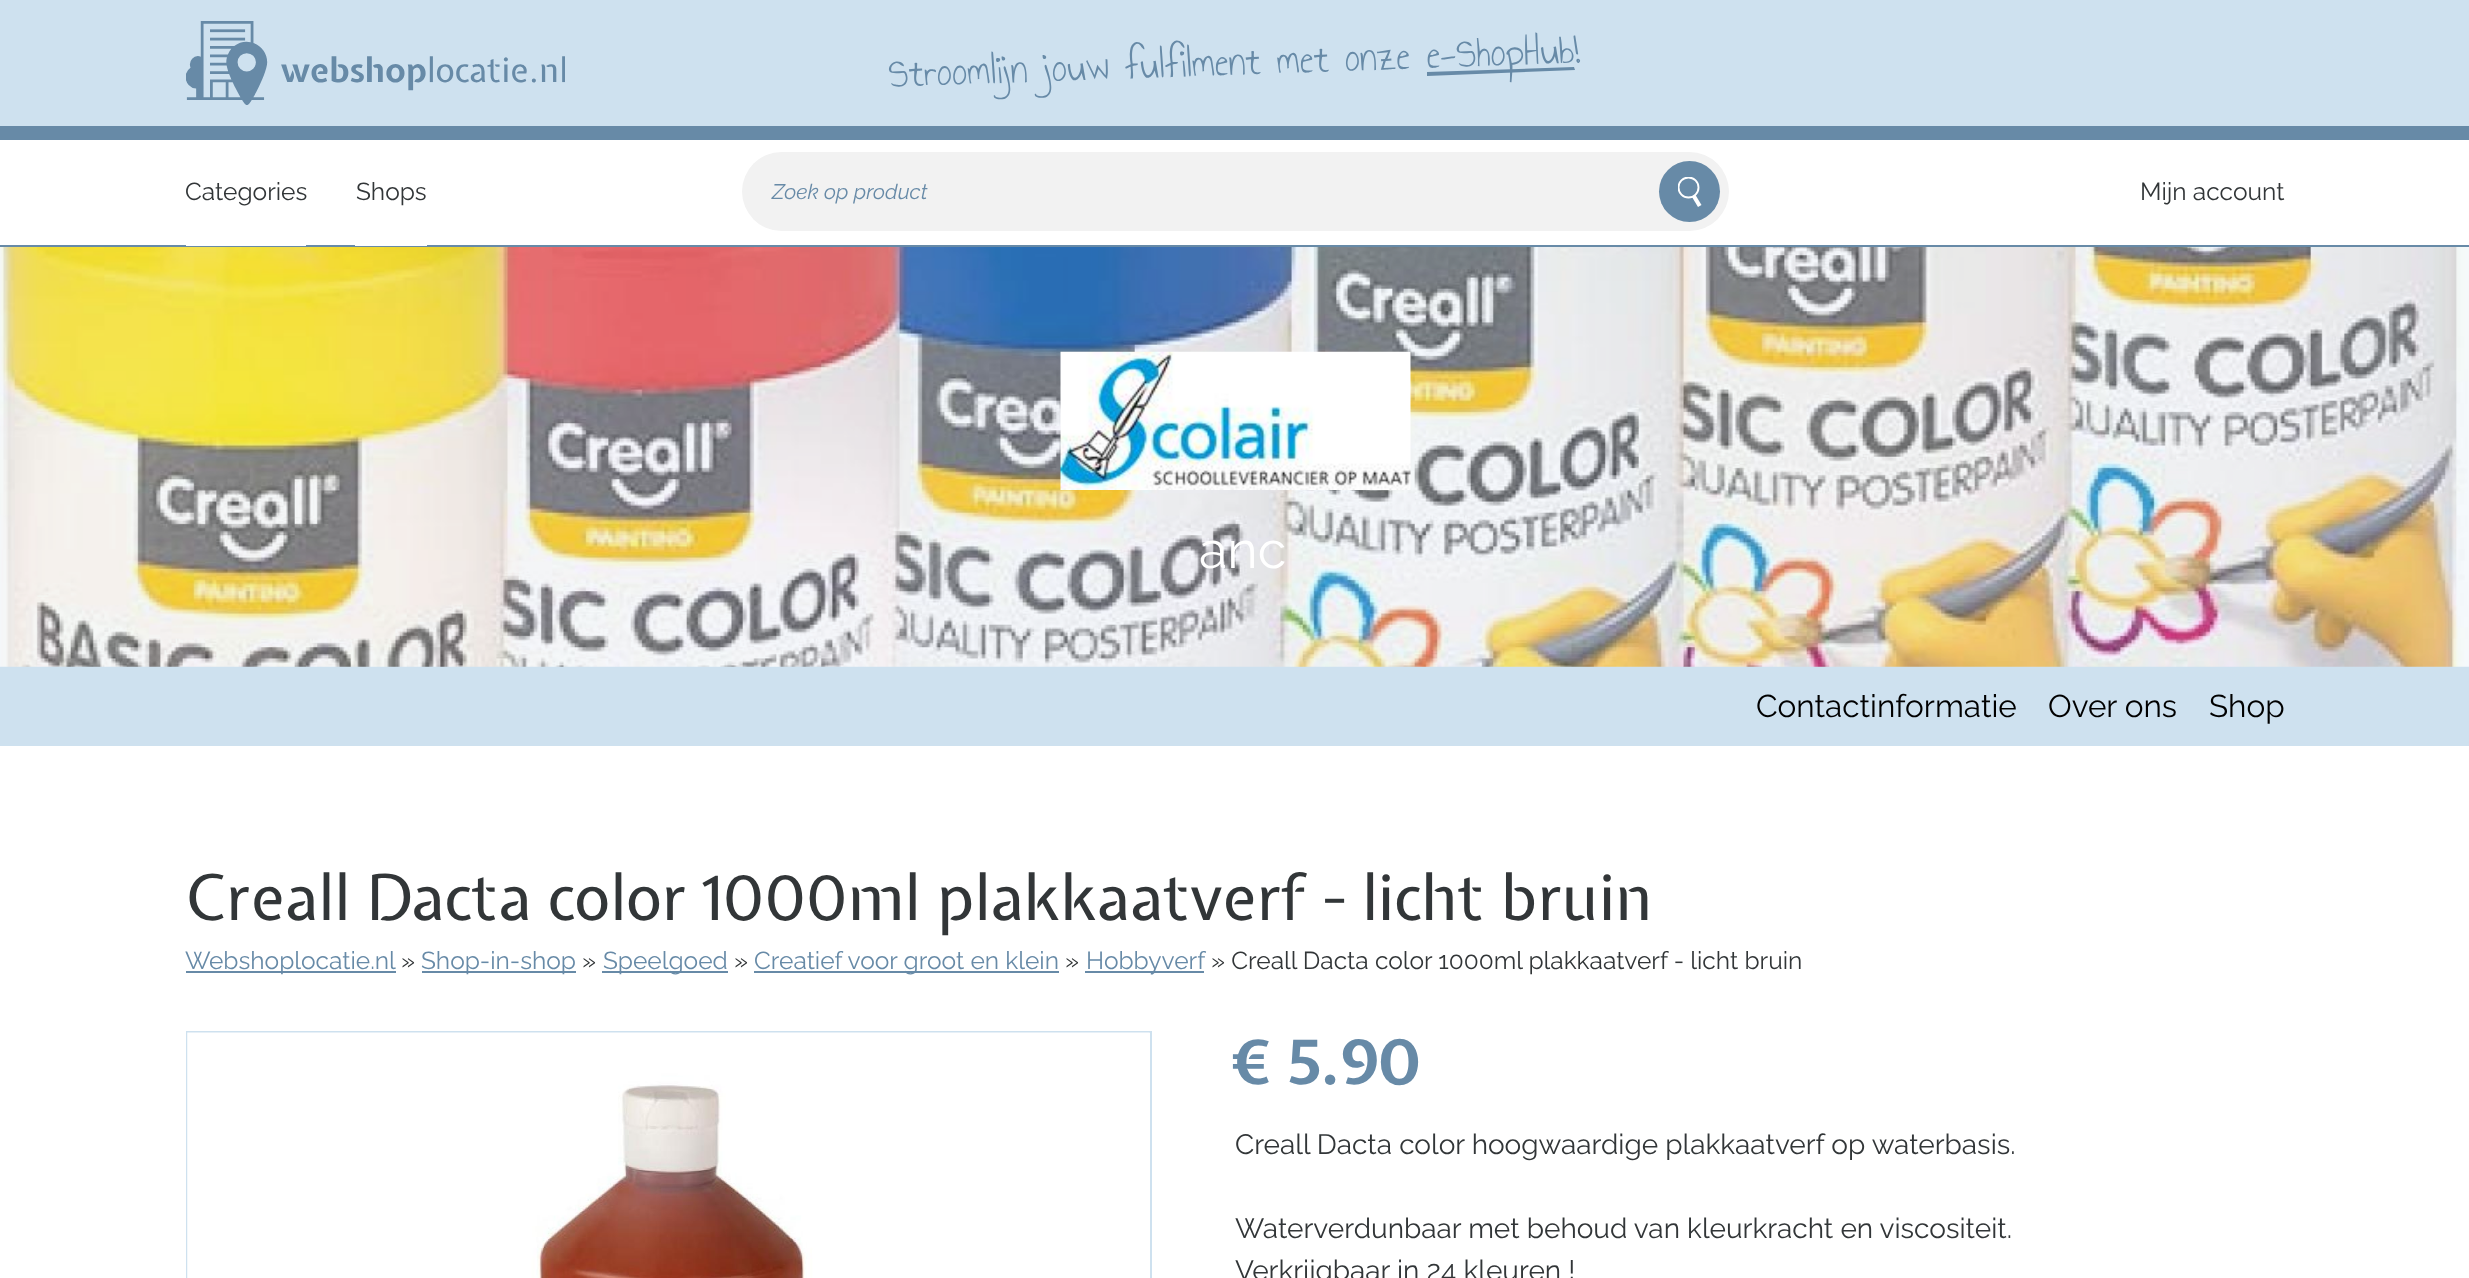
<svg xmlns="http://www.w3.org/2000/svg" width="2469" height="1278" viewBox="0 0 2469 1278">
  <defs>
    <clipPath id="clip1"><rect x="1678" y="177" width="23" height="30"/></clipPath>
  </defs>
  <rect width="100%" height="100%" fill="rgb(255,255,255)"/>
  <rect x="0" y="0" width="2469" height="126" fill="rgb(206,225,239)"/>
  <rect x="0" y="126" width="2469" height="14" fill="rgb(103,138,167)"/>
  <image x="186" y="21" width="379" height="84" href="pic1.png"/>
  <text x="889" y="87" transform="rotate(-2 889 87)" font-family="Annie Use Your Telescope" font-size="42" fill="rgb(103,138,167)">Stroomlijn jouw fulfilment met onze</text>
  <path d="M1427 72L1574 67L1575 70L1427 76Z" fill="rgb(103,138,167)"/>
  <g font-family="Annie Use Your Telescope" font-size="42" fill="rgb(103,138,167)">
    <text x="1427" y="68" transform="rotate(-2 1427 68)">e-ShopHub</text>
    <text x="1574" y="63" transform="rotate(-2 1574 63)">!</text>
  </g>
  <rect x="0" y="245" width="2469" height="2" fill="rgb(103,138,167)"/>
  <rect x="186" y="245" width="120" height="1" fill="rgb(255,255,255)"/>
  <text x="185" y="200" font-family="Raleway" font-size="24.5" fill="rgb(50,54,56)">Categories</text>
  <rect x="355" y="245" width="72" height="1" fill="rgb(255,255,255)"/>
  <text x="356" y="200" font-family="Raleway" font-size="24.5" fill="rgb(50,54,56)">Shops</text>
  <rect x="742" y="152" width="987" height="79" rx="39.5" fill="rgb(242,242,242)"/>
  <text x="772" y="199" font-family="Raleway" font-size="21" font-style="italic" fill="rgb(103,138,167)">Zoek op product</text>
  <circle cx="1689.5" cy="191.5" r="30.5" fill="rgb(103,138,167)"/>
  <g clip-path="url(#clip1)">
    <circle cx="1688.5" cy="187.5" r="10" fill="none" stroke="rgb(255,255,255)" stroke-width="1.9"/>
  </g>
  <path d="M1692 197L1695.5 195L1701.5 205L1698 207Z" fill="rgb(255,255,255)"/>
  <text x="2140" y="200" font-family="Raleway" font-size="24.5" fill="rgb(50,54,56)">Mijn account</text>
  <rect x="0" y="247" width="2469" height="499" fill="rgb(206,225,239)"/>
  <image x="0" y="247" width="2469" height="420" href="pic2.png"/>
  <image x="1060" y="351" width="351" height="139" href="pic3.png"/>
  <text x="1199" y="568" font-family="Raleway" font-size="52" fill="rgb(255,255,255)">anc</text>
  <g font-family="Raleway" font-size="31.5" fill="rgb(0,0,0)">
    <text x="1756" y="717">Contactinformatie</text>
    <text x="2048" y="717">Over ons</text>
    <text x="2209" y="717">Shop</text>
  </g>
  <text x="185" y="920" font-family="Expletus Sans" font-size="63" fill="rgb(50,54,56)">Creall Dacta color 1000ml plakkaatverf - licht bruin</text>
  <rect x="186" y="971" width="210" height="2" fill="rgb(103,138,167)"/>
  <text x="185" y="969" font-family="Raleway" font-size="24.5" fill="rgb(103,138,167)">Webshoplocatie.nl</text>
  <text x="401" y="969" font-family="Raleway" font-size="24.5" fill="rgb(50,54,56)">»</text>
  <rect x="422" y="971" width="154" height="2" fill="rgb(103,138,167)"/>
  <text x="421" y="969" font-family="Raleway" font-size="24.5" fill="rgb(103,138,167)">Shop-in-shop</text>
  <text x="582" y="969" font-family="Raleway" font-size="24.5" fill="rgb(50,54,56)">»</text>
  <rect x="602" y="971" width="126" height="2" fill="rgb(103,138,167)"/>
  <text x="603" y="969" font-family="Raleway" font-size="24.5" fill="rgb(103,138,167)">Speelgoed</text>
  <text x="734" y="969" font-family="Raleway" font-size="24.5" fill="rgb(50,54,56)">»</text>
  <rect x="754" y="971" width="305" height="2" fill="rgb(103,138,167)"/>
  <text x="754" y="969" font-family="Raleway" font-size="24.5" fill="rgb(103,138,167)">Creatief voor groot en klein</text>
  <text x="1065" y="969" font-family="Raleway" font-size="24.5" fill="rgb(50,54,56)">»</text>
  <rect x="1085" y="971" width="119" height="2" fill="rgb(103,138,167)"/>
  <text x="1086" y="969" font-family="Raleway" font-size="24.5" fill="rgb(103,138,167)">Hobbyverf</text>
  <text x="1211" y="969" font-family="Raleway" font-size="24.5" fill="rgb(50,54,56)">» Creall Dacta color 1000ml plakkaatverf - licht bruin</text>
  <rect x="187" y="1032" width="964" height="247" fill="none" stroke="rgb(206,225,239)" stroke-width="2"/>
  <image x="187" y="1032" width="963" height="246" href="pic4.png"/>
  <text x="1235" y="1084" font-family="Expletus Sans" font-size="63" font-weight="bold" fill="rgb(103,138,167)">€ 5.90</text>
  <g font-family="Raleway" font-size="28" fill="rgb(50,54,56)">
    <text x="1235" y="1154">Creall Dacta color hoogwaardige plakkaatverf op waterbasis.</text>
    <text>
      <tspan x="1235" y="1238">Waterverdunbaar met behoud van kleurkracht en viscositeit.</tspan>
      <tspan x="1235" y="1280">Verkrijgbaar in 24 kleuren !</tspan>
    </text>
  </g>
</svg>
